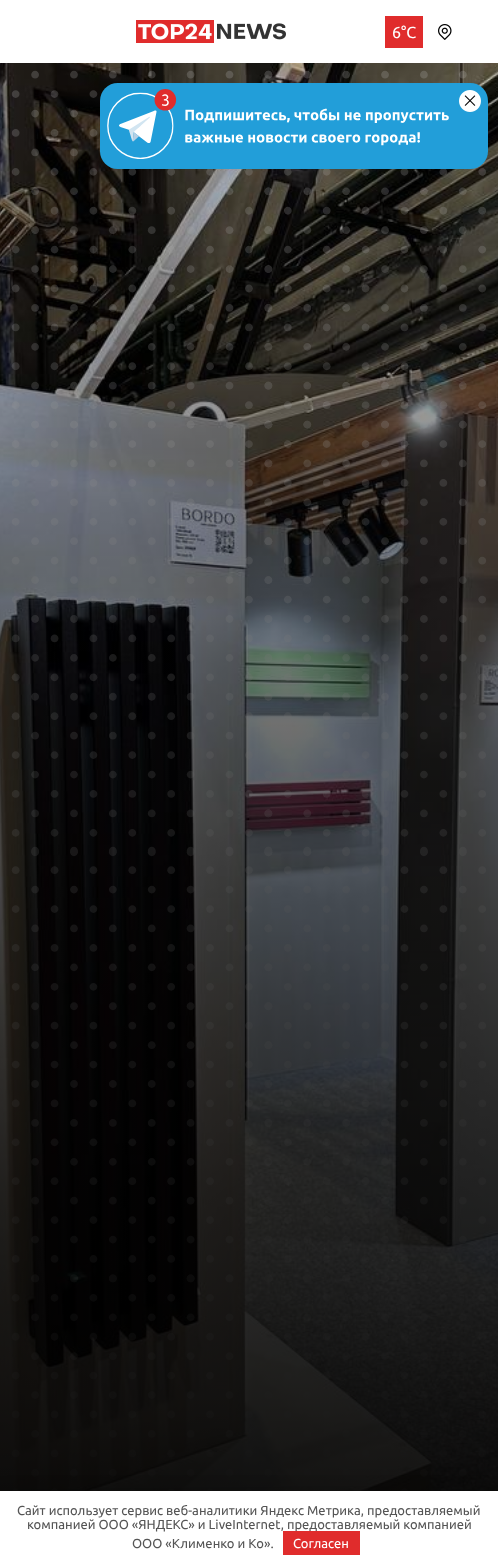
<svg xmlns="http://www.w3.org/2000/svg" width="498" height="1567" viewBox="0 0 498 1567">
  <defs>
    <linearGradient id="g1" gradientUnits="userSpaceOnUse" x1="249" y1="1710" x2="249" y2="0"><stop offset="0" stop-color="rgb(0,0,0)"/><stop offset="0.3" stop-color="rgb(0,0,0)" stop-opacity="0.8"/><stop offset="1" stop-color="rgb(0,0,0)" stop-opacity="0.2"/></linearGradient>
  </defs>
  <rect width="100%" height="100%" fill="rgb(255,255,255)"/>
  <image x="136" y="20" width="150" height="23" href="pic1.png"/>
  <rect x="385" y="16" width="38" height="32" fill="rgb(224,44,44)"/>
  <text x="392" y="38" font-family="Ubuntu" font-size="16" fill="rgb(255,255,255)">6°C</text>
  <image x="438" y="24" width="14" height="16" href="pic2.png"/>
  <image x="0" y="63" width="498" height="1428" href="pic5.png"/>
  <image x="11" y="70" width="487" height="1421" href="pic6.png"/>
  <rect x="0" y="63" width="498" height="1428" fill="url(#g1)"/>
  <image x="100" y="83" width="388" height="86" href="pic3.png"/>
  <image x="459" y="90" width="22" height="22" href="pic4.png"/>
  <rect x="0" y="1491" width="498" height="76" fill="rgba(0,0,0,0.2)" filter="blur(7.5px)"/>
  <rect x="0" y="1491" width="498" height="76" fill="rgb(255,255,255)"/>
  <g font-family="Ubuntu" font-size="13" fill="rgb(85,85,85)">
    <text x="17" y="1515">Сайт использует сервис веб-аналитики Яндекс Метрика, предоставляемый</text>
    <text x="27" y="1529">компанией ООО «ЯНДЕКС» и LiveInternet, предоставляемый компанией</text>
    <text x="132" y="1548">ООО «Клименко и Ко».</text>
  </g>
  <rect x="283" y="1531" width="77" height="24" fill="rgb(224,44,44)"/>
  <text x="293" y="1548" font-family="Ubuntu" font-size="13" fill="rgb(255,255,255)">Согласен</text>
</svg>
